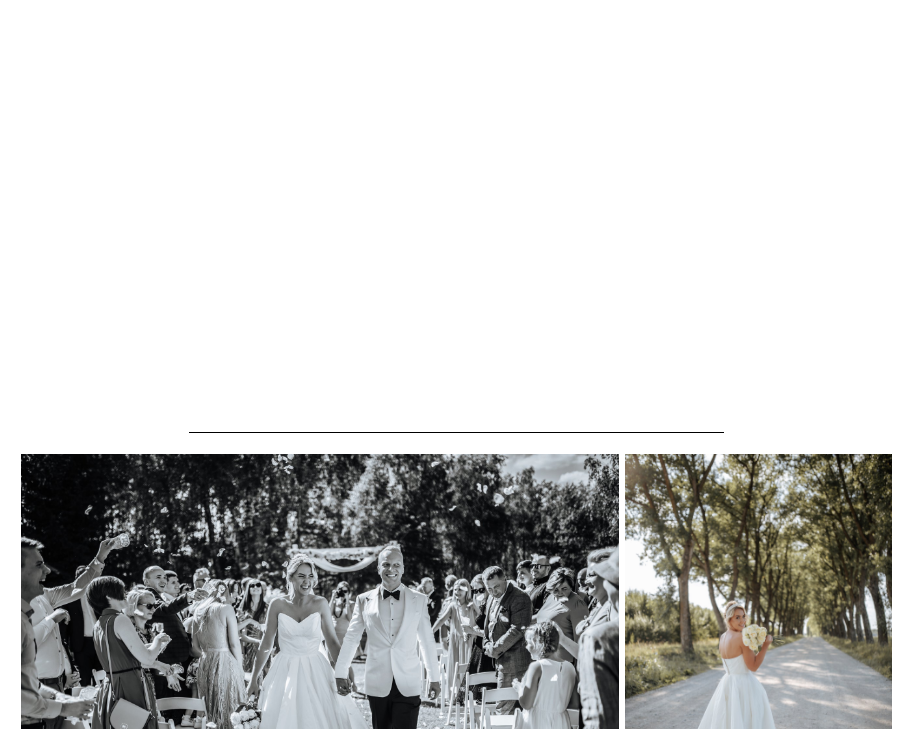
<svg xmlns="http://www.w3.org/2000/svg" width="913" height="729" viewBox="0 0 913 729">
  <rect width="100%" height="100%" fill="rgb(255,255,255)"/>
  <rect x="189" y="432" width="535" height="1" fill="rgb(0,0,0)"/>
  <image x="21" y="454" width="598" height="275" href="pic1.png"/>
  <image x="625" y="454" width="267" height="275" href="pic2.png"/>
</svg>
